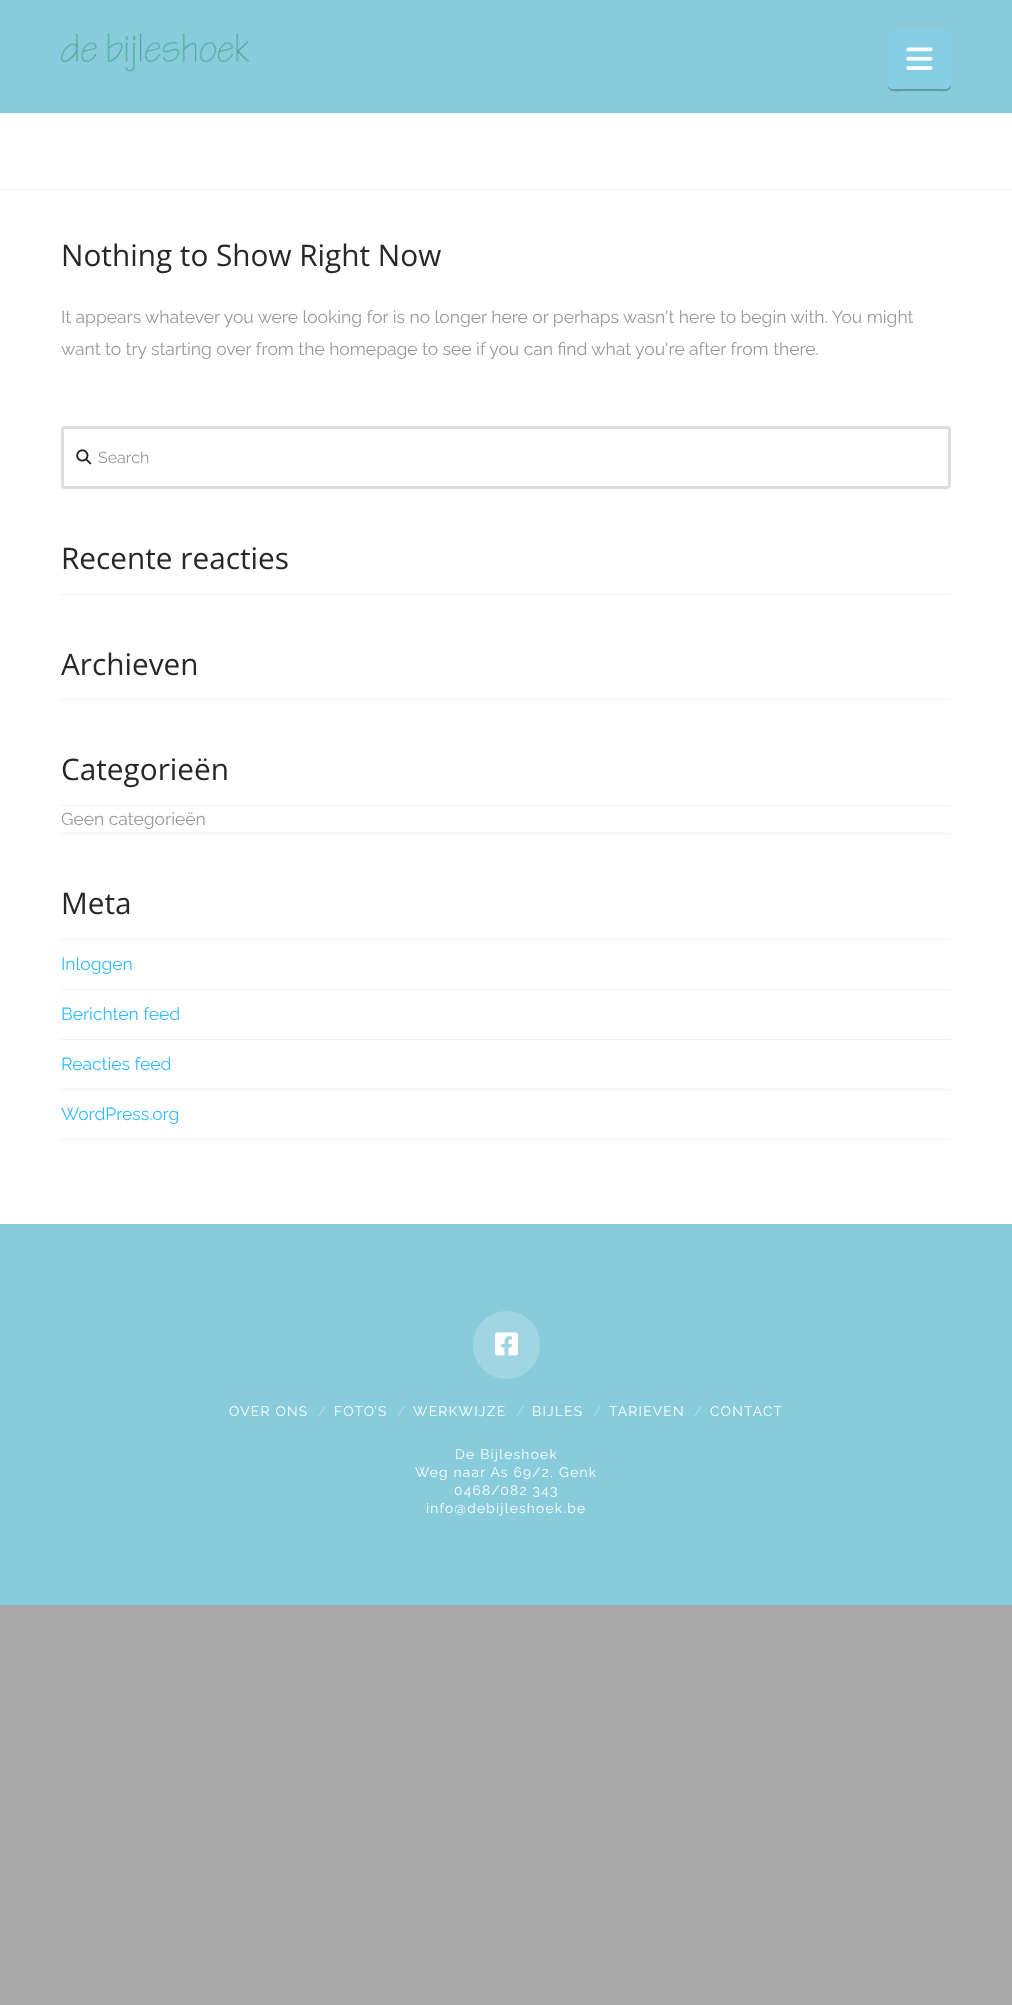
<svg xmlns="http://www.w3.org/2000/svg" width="1012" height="2005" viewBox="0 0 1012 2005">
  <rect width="100%" height="100%" fill="rgb(168,168,168)"/>
  <rect x="0" y="114" width="1012" height="1110" fill="rgb(255,255,255)"/>
  <rect x="0" y="0" width="1012" height="113" fill="rgb(136,204,219)"/>
  <image x="61" y="33" width="188" height="39" href="pic1.png"/>
  <path d="M888 86C888 93 898 91 902 91H937C942 91 951 93 951 85C950 87 948 89 946 89H892C891 89 889 88 888 86Z" fill="rgb(102,153,164)"/>
  <rect x="888" y="30" width="63" height="59" rx="5" fill="rgba(122,211,255,0.25)"/>
  <image x="906" y="47" width="27" height="23" href="pic2.png"/>
  <rect x="0" y="113" width="1012" height="1" fill="rgb(242,242,242)"/>
  <rect x="0" y="189" width="1012" height="1" fill="rgb(242,242,242)"/>
  <text x="61" y="266" font-family="Open Sans" font-size="29.75" fill="rgb(39,39,39)">Nothing to Show Right Now</text>
  <g font-family="Raleway" font-size="17.5" fill="rgb(153,153,153)">
    <text>
      <tspan x="61" y="323">It appears whatever you were looking for is no longer here or perhaps wasn't here to begin with. You might</tspan>
      <tspan x="61" y="355">want to try starting over from the homepage to see if you can find what you're after from there.</tspan>
    </text>
  </g>
  <rect x="62.5" y="427.5" width="887" height="60" rx="2.5" fill="none" stroke="rgb(221,221,221)" stroke-width="3"/>
  <image x="76" y="449" width="16" height="16" href="pic3.png"/>
  <text x="98" y="463" font-family="Raleway" font-size="16" fill="rgb(153,153,153)">Search</text>
  <text x="61" y="569" font-family="Open Sans" font-size="29.75" fill="rgb(39,39,39)">Recente reacties</text>
  <rect x="61" y="594" width="890" height="1" fill="rgb(242,242,242)"/>
  <text x="61" y="675" font-family="Open Sans" font-size="29.75" fill="rgb(39,39,39)">Archieven</text>
  <rect x="61" y="699" width="890" height="1" fill="rgb(242,242,242)"/>
  <text x="61" y="780" font-family="Open Sans" font-size="29.75" fill="rgb(39,39,39)">Categorieën</text>
  <rect x="61" y="833" width="890" height="1" fill="rgb(242,242,242)"/>
  <rect x="61" y="805" width="890" height="1" fill="rgb(242,242,242)"/>
  <text x="61" y="825" font-family="Raleway" font-size="17.5" fill="rgb(153,153,153)">Geen categorieën</text>
  <text x="61" y="914" font-family="Open Sans" font-size="29.75" fill="rgb(39,39,39)">Meta</text>
  <rect x="61" y="939" width="890" height="1" fill="rgb(242,242,242)"/>
  <rect x="61" y="989" width="890" height="1" fill="rgb(242,242,242)"/>
  <text x="61" y="970" font-family="Raleway" font-size="17.5" fill="rgb(51,187,255)">Inloggen</text>
  <rect x="61" y="1039" width="890" height="1" fill="rgb(242,242,242)"/>
  <text x="61" y="1020" font-family="Raleway" font-size="17.5" fill="rgb(51,187,255)">Berichten feed</text>
  <rect x="61" y="1089" width="890" height="1" fill="rgb(242,242,242)"/>
  <text x="61" y="1070" font-family="Raleway" font-size="17.5" fill="rgb(51,187,255)">Reacties feed</text>
  <rect x="61" y="1139" width="890" height="1" fill="rgb(242,242,242)"/>
  <text x="61" y="1120" font-family="Raleway" font-size="17.5" fill="rgb(51,187,255)">WordPress.org</text>
  <rect x="0" y="1224" width="1012" height="381" fill="rgb(136,204,219)"/>
  <rect x="473" y="1311" width="67" height="68" rx="33.5" fill="rgb(160,214,226)"/>
  <image x="495" y="1332" width="23" height="24" href="pic4.png"/>
  <text x="229" y="1416" font-family="Raleway" font-size="13.75" letter-spacing="1.25" fill="rgb(255,255,255)">OVER ONS</text>
  <text x="318" y="1416" font-family="Raleway" font-size="13.75" fill="rgb(178,222,232)">/</text>
  <text x="334" y="1416" font-family="Raleway" font-size="13.75" letter-spacing="1.25" fill="rgb(255,255,255)">FOTO’S</text>
  <text x="397" y="1416" font-family="Raleway" font-size="13.75" fill="rgb(178,222,232)">/</text>
  <text x="413" y="1416" font-family="Raleway" font-size="13.75" letter-spacing="1.25" fill="rgb(255,255,255)">WERKWIJZE</text>
  <text x="516" y="1416" font-family="Raleway" font-size="13.75" fill="rgb(178,222,232)">/</text>
  <text x="532" y="1416" font-family="Raleway" font-size="13.75" letter-spacing="1.25" fill="rgb(255,255,255)">BIJLES</text>
  <text x="593" y="1416" font-family="Raleway" font-size="13.75" fill="rgb(178,222,232)">/</text>
  <text x="609" y="1416" font-family="Raleway" font-size="13.75" letter-spacing="1.25" fill="rgb(255,255,255)">TARIEVEN</text>
  <text x="694" y="1416" font-family="Raleway" font-size="13.75" fill="rgb(178,222,232)">/</text>
  <g font-family="Raleway" font-size="13.75" letter-spacing="1.25" fill="rgb(255,255,255)">
    <text x="710" y="1416">CONTACT</text>
    <text x="455" y="1459">De Bijleshoek</text>
    <text x="415" y="1477">Weg naar As 69/2, Genk</text>
    <text x="454" y="1495">0468/082 343</text>
    <text x="426" y="1513">info@debijleshoek.be</text>
  </g>
</svg>
